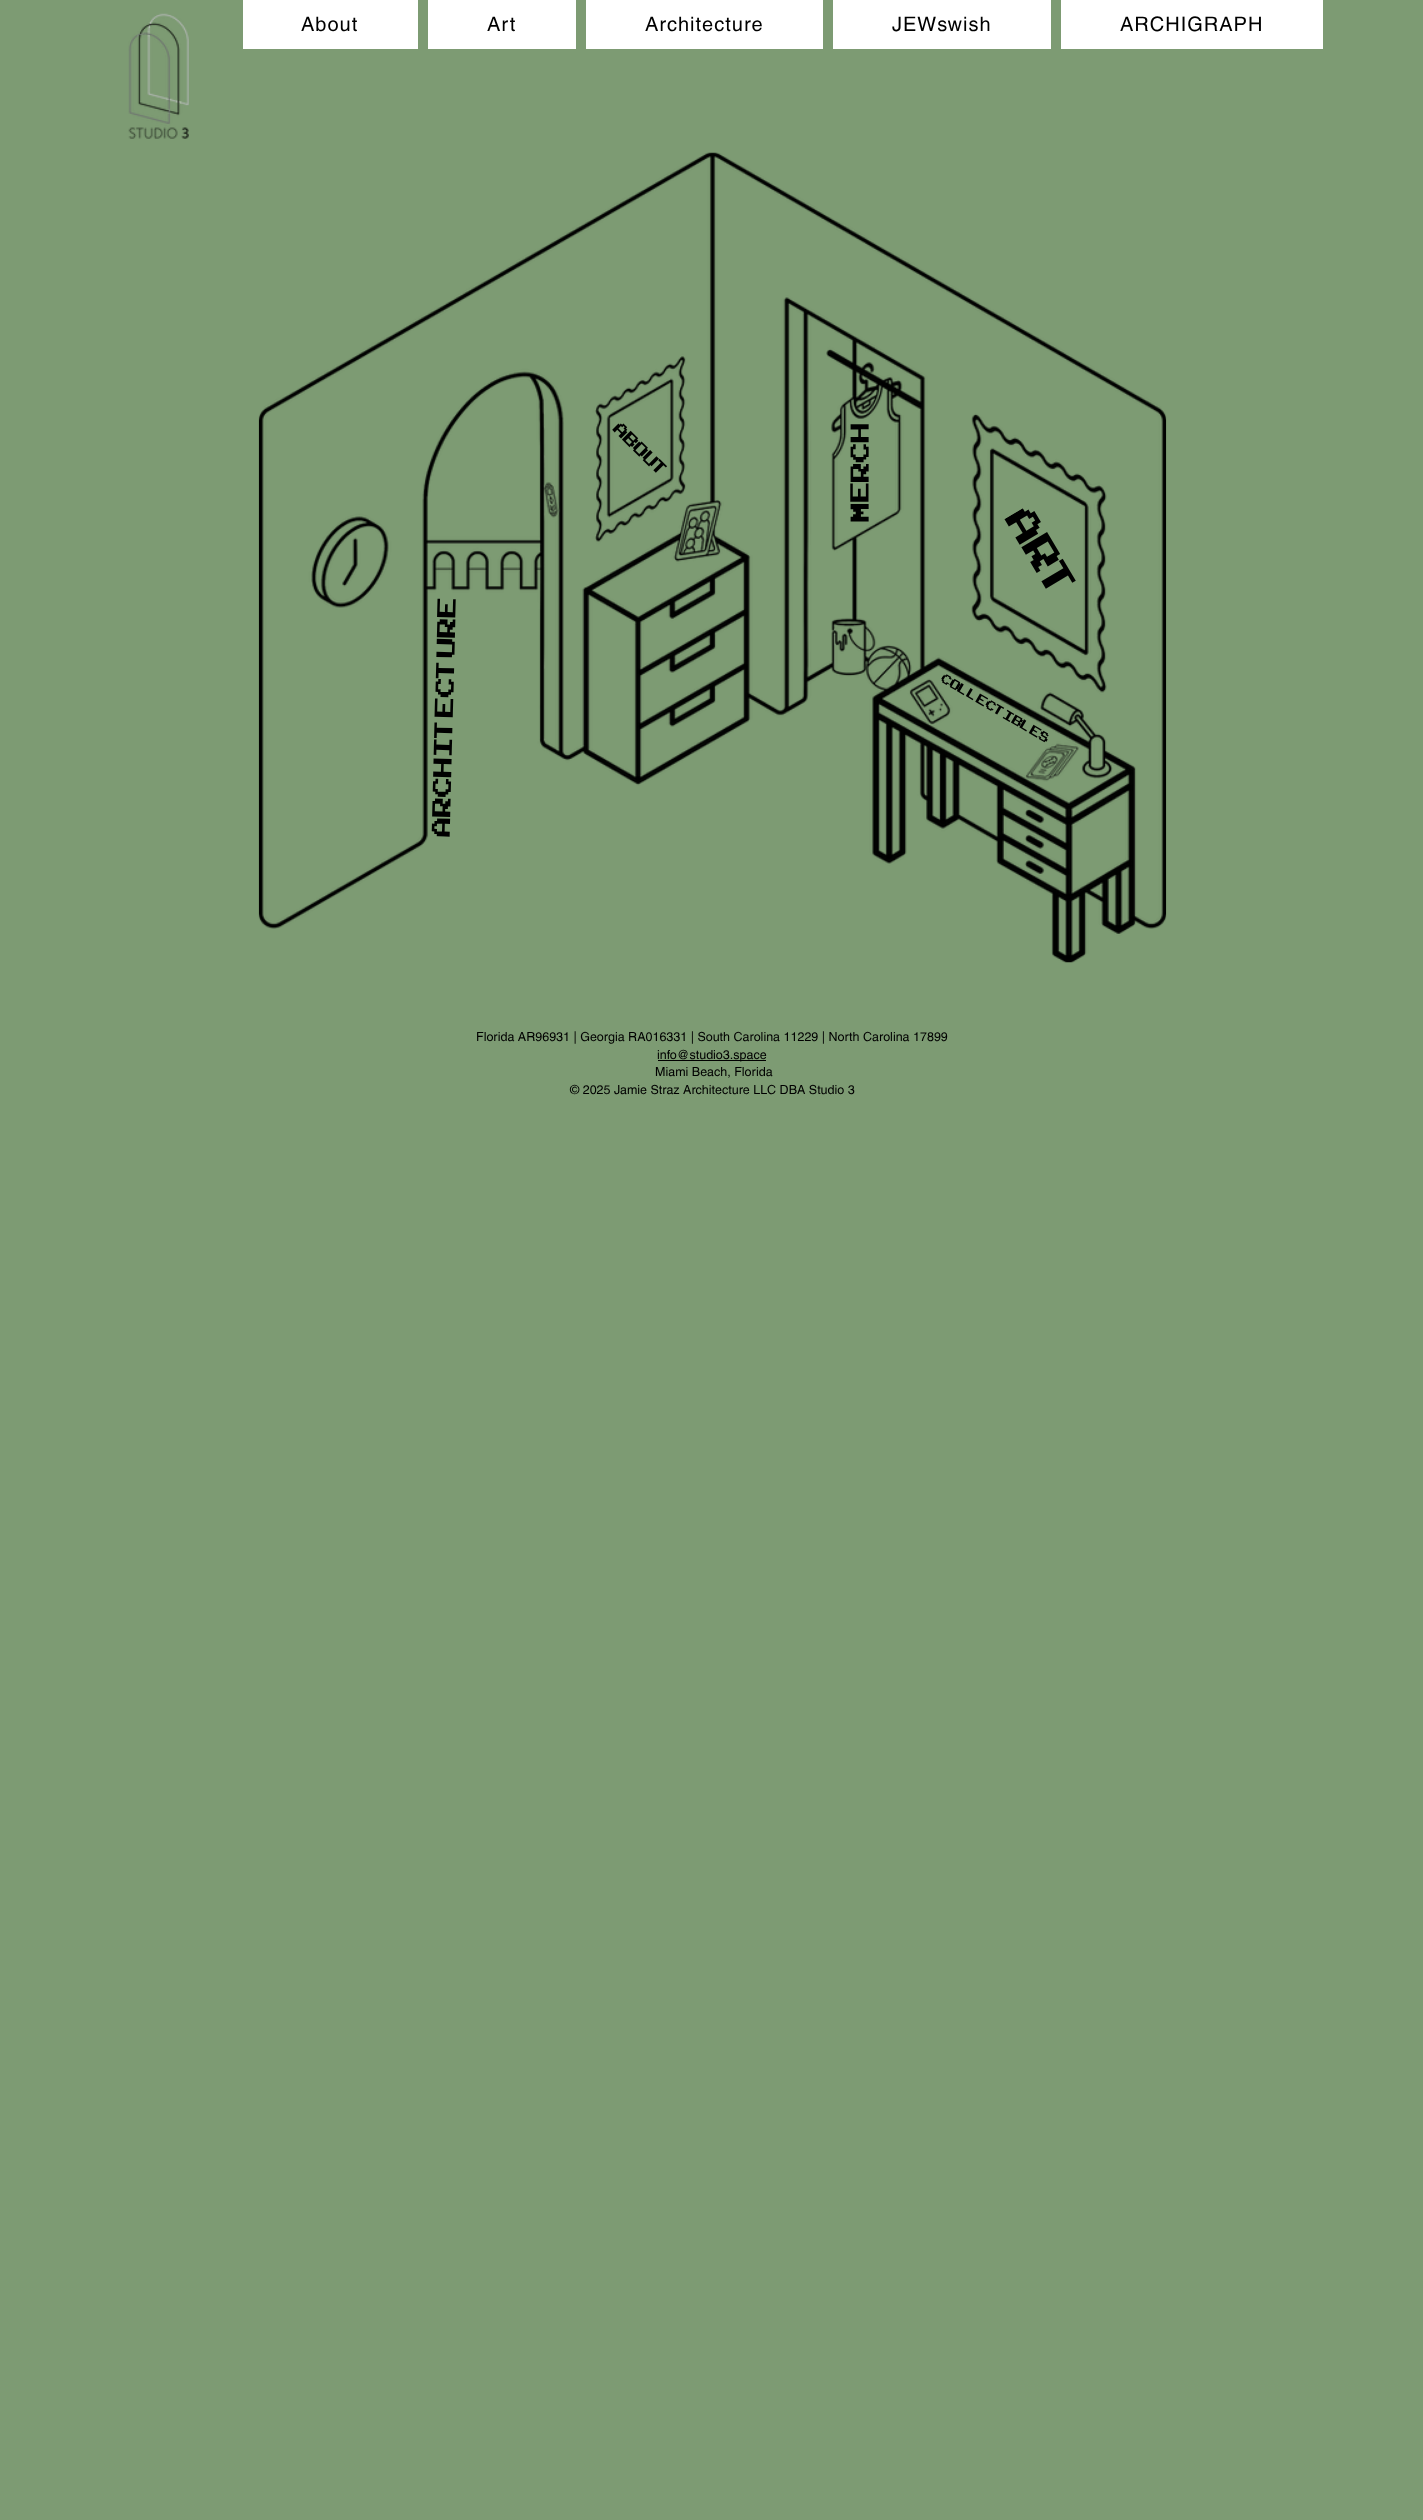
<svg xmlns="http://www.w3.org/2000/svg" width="1423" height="2520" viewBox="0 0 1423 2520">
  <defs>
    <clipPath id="clip1"><path d="M625 416.5L674 464.5L656.5 482.5L607.5 434Z"/></clipPath>
    <clipPath id="clip2"><path d="M841 521.5V422H879V521.5Z"/></clipPath>
    <clipPath id="clip3"><path d="M1043 496L1098.5 589L1045.5 620L990.5 527.5Z"/></clipPath>
    <clipPath id="clip4"><path d="M422 836L428 597L465.5 598L459.5 837Z"/></clipPath>
    <clipPath id="clip5"><path d="M947 669L1054 731L1044.5 747.5L937.5 685Z"/></clipPath>
  </defs>
  <rect width="100%" height="100%" fill="rgb(125,155,115)"/>
  <image x="128" y="13" width="61" height="126" href="pic1.png"/>
  <rect x="243" y="0" width="175" height="49" fill="rgb(255,255,255)"/>
  <text x="301" y="31" font-family="helvetica" font-size="20" letter-spacing="1" fill="rgb(0,0,0)">About</text>
  <rect x="428" y="0" width="148" height="49" fill="rgb(255,255,255)"/>
  <text x="487" y="31" font-family="helvetica" font-size="20" letter-spacing="1" fill="rgb(0,0,0)">Art</text>
  <rect x="586" y="0" width="237" height="49" fill="rgb(255,255,255)"/>
  <text x="645" y="31" font-family="helvetica" font-size="20" letter-spacing="1" fill="rgb(0,0,0)">Architecture</text>
  <rect x="833" y="0" width="218" height="49" fill="rgb(255,255,255)"/>
  <text x="892" y="31" font-family="helvetica" font-size="20" letter-spacing="1" fill="rgb(0,0,0)">JEWswish</text>
  <rect x="1061" y="0" width="262" height="49" fill="rgb(255,255,255)"/>
  <text x="1120" y="31" font-family="helvetica" font-size="20" letter-spacing="1" fill="rgb(0,0,0)">ARCHIGRAPH</text>
  <image x="258" y="152" width="909" height="811" href="pic2.png"/>
  <g clip-path="url(#clip1)">
    <text x="611" y="431" transform="rotate(44.6 611 431)" font-family="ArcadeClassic" font-size="25" fill="rgb(0,0,0)">ABOUT</text>
  </g>
  <g clip-path="url(#clip2)">
    <text x="871" y="522" transform="rotate(-90 871 522)" font-family="ArcadeClassic" font-size="36.25" fill="rgb(0,0,0)">MERCH</text>
  </g>
  <g clip-path="url(#clip3)">
    <text x="1001" y="521" transform="rotate(59.2 1001 521)" font-family="ArcadeClassic" font-size="60" fill="rgb(0,0,0)">ART</text>
  </g>
  <g clip-path="url(#clip4)">
    <text x="452" y="837" transform="rotate(-88.5 452 837)" font-family="ArcadeClassic" font-size="36.25" fill="rgb(0,0,0)">ARCHITECTURE</text>
  </g>
  <g clip-path="url(#clip5)">
    <text x="939" y="682" transform="rotate(30.3 939 682)" font-family="ArcadeClassic" font-size="18.75" fill="rgb(0,0,0)">COLLECTIBLES</text>
  </g>
  <text x="476" y="1041" font-family="helvetica" font-size="12.5" fill="rgb(0,0,0)">Florida AR96931 | Georgia RA016331 | South Carolina 11229 | North Carolina 17899</text>
  <rect x="658" y="1060" width="108" height="1" fill="rgb(0,0,0)"/>
  <g font-family="helvetica" font-size="12.5" fill="rgb(0,0,0)">
    <text x="657" y="1059">info@studio3.space</text>
    <text x="655" y="1076">Miami Beach, Florida</text>
    <text x="570" y="1094">© 2025 Jamie Straz Architecture LLC DBA Studio 3</text>
  </g>
</svg>
